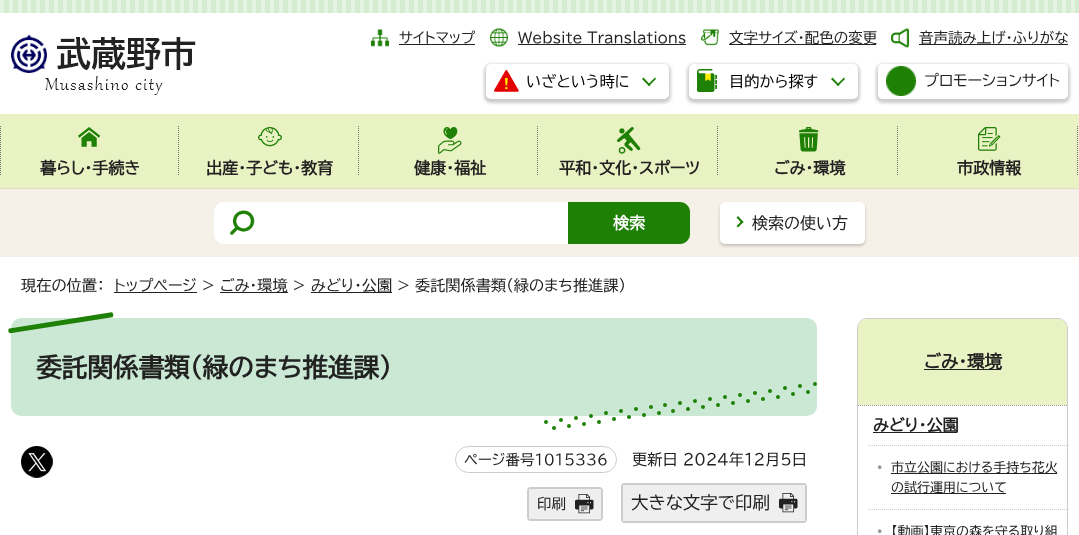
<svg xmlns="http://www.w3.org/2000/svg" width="1079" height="535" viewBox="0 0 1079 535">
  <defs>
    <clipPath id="clip1"><path d="M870 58H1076V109H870ZM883 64H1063C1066 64 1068 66 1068 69V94C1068 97 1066 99 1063 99H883C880 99 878 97 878 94V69C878 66 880 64 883 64Z" clip-rule="evenodd"/></clipPath>
  </defs>
  <rect width="100%" height="100%" fill="rgb(255,255,255)"/>
  <image x="0" y="0" width="1079" height="13" href="pic1.png"/>
  <image x="11" y="34" width="185" height="61" href="pic2.png"/>
  <image x="371" y="29" width="18" height="18" href="pic3.png"/>
  <text x="399" y="43" font-family="BIZ UDPGothic" font-size="14.5" fill="rgb(34,34,34)">サイトマップ</text>
  <rect x="399" y="44" width="76" height="1" fill="rgb(34,34,34)"/>
  <image x="490" y="28" width="18" height="19" href="pic4.png"/>
  <text x="518" y="43" font-family="BIZ UDPGothic" font-size="14.5" fill="rgb(34,34,34)">Website Translations</text>
  <rect x="518" y="44" width="168" height="1" fill="rgb(34,34,34)"/>
  <image x="701" y="29" width="18" height="17" href="pic5.png"/>
  <rect x="729" y="44" width="147" height="1" fill="rgb(34,34,34)"/>
  <text x="729" y="43" font-family="BIZ UDPGothic" font-size="14.5" fill="rgb(34,34,34)">文字サイズ・配色の変更</text>
  <image x="891" y="28" width="18" height="20" href="pic6.png"/>
  <rect x="919" y="44" width="149" height="1" fill="rgb(34,34,34)"/>
  <text x="919" y="43" font-family="BIZ UDPGothic" font-size="14.5" fill="rgb(34,34,34)">音声読み上げ・ふりがな</text>
  <rect x="484" y="64" width="187" height="39" rx="7" fill="rgba(0,0,0,0.2)" filter="blur(1.5px)"/>
  <rect x="486" y="64" width="183" height="35" rx="5" fill="rgb(255,255,255)"/>
  <image x="494" y="70" width="25" height="22" href="pic7.png"/>
  <text x="526" y="87" font-family="BIZ UDPGothic" font-size="15.2" fill="rgb(0,0,0)">いざという時に</text>
  <path d="M656 79L649 86L647.5 85L655 77.5Z" fill="rgb(30,128,5)"/>
  <path d="M650.5 85L649 86L642 79L643.5 77.5Z" fill="rgb(30,128,5)"/>
  <rect x="687" y="64" width="173" height="39" rx="7" fill="rgba(0,0,0,0.2)" filter="blur(1.5px)"/>
  <rect x="689" y="64" width="169" height="35" rx="5" fill="rgb(255,255,255)"/>
  <image x="697" y="69" width="20" height="23" href="pic8.png"/>
  <text x="729" y="87" font-family="BIZ UDPGothic" font-size="15.2" fill="rgb(0,0,0)">目的から探す</text>
  <path d="M845 79L838 86L836.5 85L844 77.5Z" fill="rgb(30,128,5)"/>
  <path d="M839.5 85L838 86L831 79L832.5 77.5Z" fill="rgb(30,128,5)"/>
  <g clip-path="url(#clip1)">
    <rect x="876" y="64" width="194" height="39" rx="7" fill="rgba(0,0,0,0.2)" filter="blur(1.5px)"/>
  </g>
  <image x="886" y="66" width="30" height="30" href="pic9.png"/>
  <text x="924" y="86" font-family="BIZ UDPGothic" font-size="15.2" fill="rgb(34,34,34)">プロモーションサイト</text>
  <rect x="0" y="114" width="1079" height="74" fill="rgb(233,242,195)"/>
  <rect x="0" y="188" width="1079" height="1" fill="rgb(230,218,193)"/>
  <image x="78" y="127" width="23" height="20" href="pic10.png"/>
  <path d="M.5 126V176" fill="none" stroke="rgb(112,112,112)" stroke-dasharray="1 1"/>
  <text x="40" y="174" font-family="BIZ UDPGothic" font-size="16" font-weight="bold" fill="rgb(34,34,34)">暮らし・手続き</text>
  <path d="M178.5 126V176" fill="none" stroke="rgb(112,112,112)" stroke-dasharray="1 1"/>
  <image x="258" y="127" width="24" height="20" href="pic11.png"/>
  <text x="206" y="174" font-family="BIZ UDPGothic" font-size="16" font-weight="bold" fill="rgb(34,34,34)">出産・子ども・教育</text>
  <path d="M358.5 126V176" fill="none" stroke="rgb(112,112,112)" stroke-dasharray="1 1"/>
  <image x="438" y="127" width="24" height="27" href="pic12.png"/>
  <text x="414" y="174" font-family="BIZ UDPGothic" font-size="16" font-weight="bold" fill="rgb(34,34,34)">健康・福祉</text>
  <path d="M537.5 126V176" fill="none" stroke="rgb(112,112,112)" stroke-dasharray="1 1"/>
  <image x="617" y="127" width="24" height="27" href="pic13.png"/>
  <text x="559" y="174" font-family="BIZ UDPGothic" font-size="16" font-weight="bold" fill="rgb(34,34,34)">平和・文化・スポーツ</text>
  <path d="M717.5 126V176" fill="none" stroke="rgb(112,112,112)" stroke-dasharray="1 1"/>
  <image x="799" y="127" width="20" height="25" href="pic14.png"/>
  <text x="774" y="174" font-family="BIZ UDPGothic" font-size="16" font-weight="bold" fill="rgb(34,34,34)">ごみ・環境</text>
  <path d="M897.5 126V176" fill="none" stroke="rgb(112,112,112)" stroke-dasharray="1 1"/>
  <image x="978" y="127" width="23" height="24" href="pic15.png"/>
  <text x="957" y="174" font-family="BIZ UDPGothic" font-size="16" font-weight="bold" fill="rgb(34,34,34)">市政情報</text>
  <path d="M1077.5 126V176" fill="none" stroke="rgb(112,112,112)" stroke-dasharray="1 1"/>
  <rect x="0" y="189" width="1079" height="68" fill="rgb(245,241,232)"/>
  <path d="M224 202H568V244H224C218.5 244 214 239.5 214 234V212C214 206.5 218.5 202 224 202Z" fill="rgb(255,255,255)"/>
  <image x="229" y="210" width="26" height="25" href="pic16.png"/>
  <path d="M568 202H680C685.5 202 690 206.5 690 212V234C690 239.5 685.5 244 680 244H568Z" fill="rgb(30,128,5)"/>
  <text x="613" y="229" font-family="BIZ UDPGothic" font-size="16" font-weight="bold" fill="rgb(255,255,255)">検索</text>
  <rect x="720" y="204" width="145" height="42" rx="5" fill="rgba(0,0,0,0.2)" filter="blur(1.5px)"/>
  <rect x="720" y="202" width="145" height="42" rx="5" fill="rgb(255,255,255)"/>
  <path d="M738 216L743.5 222L742 223.5L736.5 217.5Z" fill="rgb(30,128,5)"/>
  <path d="M742 220.5L743.5 222L738 227.5L736.5 226Z" fill="rgb(30,128,5)"/>
  <text x="752" y="229" font-family="BIZ UDPGothic" font-size="16" fill="rgb(34,34,34)">検索の使い方</text>
  <g font-family="BIZ UDPGothic" font-size="15.2" fill="rgb(34,34,34)">
    <text x="21" y="291">現在の位置：</text>
    <text x="114" y="291">トップページ &gt;</text>
  </g>
  <rect x="114" y="292" width="83" height="1" fill="rgb(34,34,34)"/>
  <rect x="220" y="292" width="68" height="1" fill="rgb(34,34,34)"/>
  <text x="220" y="291" font-family="BIZ UDPGothic" font-size="15.2" fill="rgb(34,34,34)">ごみ・環境 &gt;</text>
  <rect x="311" y="292" width="81" height="1" fill="rgb(34,34,34)"/>
  <text x="311" y="291" font-family="BIZ UDPGothic" font-size="15.2" fill="rgb(34,34,34)">みどり・公園 &gt; 委託関係書類（緑のまち推進課）</text>
  <rect x="11" y="318" width="806" height="98" rx="10" fill="rgb(203,232,213)"/>
  <image x="8" y="312" width="106" height="22" href="pic17.png"/>
  <text x="36" y="377" font-family="BIZ UDPGothic" font-size="25.6" font-weight="bold" fill="rgb(34,34,34)">委託関係書類（緑のまち推進課）</text>
  <image x="544" y="382" width="273" height="48" href="pic18.png"/>
  <image x="21" y="446" width="32" height="32" href="pic19.png"/>
  <rect x="455.5" y="446.5" width="161" height="26" rx="13" fill="none" stroke="rgb(204,204,204)"/>
  <text x="464" y="465" font-family="BIZ UDPGothic" font-size="14.5" fill="rgb(34,34,34)">ページ番号1015336</text>
  <text x="632" y="465" font-family="BIZ UDPGothic" font-size="15.2" fill="rgb(34,34,34)">更新日 2024年12月5日</text>
  <rect x="528" y="488" width="74" height="32" rx="3" fill="none" stroke="rgb(204,204,204)" stroke-width="2"/>
  <rect x="529" y="489" width="72" height="30" fill="rgb(239,239,239)"/>
  <image x="575" y="494" width="19" height="20" href="pic20.png"/>
  <text x="537" y="509" font-family="BIZ UDPGothic" font-size="14.5" fill="rgb(34,34,34)">印刷</text>
  <rect x="622" y="484" width="184" height="38" rx="3" fill="none" stroke="rgb(204,204,204)" stroke-width="2"/>
  <rect x="623" y="485" width="182" height="36" fill="rgb(239,239,239)"/>
  <image x="779" y="493" width="19" height="20" href="pic20.png"/>
  <text x="631" y="509" font-family="BIZ UDPGothic" font-size="17.5" fill="rgb(34,34,34)">大きな文字で印刷</text>
  <rect x="857.5" y="318.5" width="210" height="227" rx="9.5" fill="none" stroke="rgb(204,204,204)"/>
  <path d="M867 319H1058C1063 319 1067 323 1067 328V405H858V328C858 323 862 319 867 319Z" fill="rgb(233,242,195)"/>
  <rect x="924" y="369" width="77" height="1" fill="rgb(34,34,34)"/>
  <text x="924" y="368" font-family="BIZ UDPGothic" font-size="17.5" font-weight="bold" fill="rgb(34,34,34)">ごみ・環境</text>
  <path d="M858 405.5H1067" fill="none" stroke="rgb(153,153,153)" stroke-dasharray="1 1"/>
  <rect x="873" y="432" width="84" height="1" fill="rgb(34,34,34)"/>
  <text x="873" y="431" font-family="BIZ UDPGothic" font-size="16" font-weight="bold" fill="rgb(34,34,34)">みどり・公園</text>
  <path d="M868 445.5H1067" fill="none" stroke="rgb(204,204,204)" stroke-dasharray="1 1"/>
  <path d="M881 466C883 467.5 880 470.5 878.5 468.5C876.5 467 879.5 464 881 466Z" fill="rgb(153,153,153)"/>
  <rect x="891" y="473" width="166" height="1" fill="rgb(34,34,34)"/>
  <text x="891" y="472" font-family="BIZ UDPGothic" font-size="13" fill="rgb(34,34,34)">市立公園における手持ち花火</text>
  <rect x="891" y="493" width="115" height="1" fill="rgb(34,34,34)"/>
  <text x="891" y="492" font-family="BIZ UDPGothic" font-size="13" fill="rgb(34,34,34)">の試行運用について</text>
  <path d="M868 509.5H1067" fill="none" stroke="rgb(204,204,204)" stroke-dasharray="1 1"/>
  <path d="M881 530C883 531.5 880 534.5 878.5 532.5C876.5 531 879.5 528 881 530Z" fill="rgb(153,153,153)"/>
  <text x="891" y="536" font-family="BIZ UDPGothic" font-size="13" fill="rgb(34,34,34)">【動画】東京の森を守る取り組</text>
</svg>
